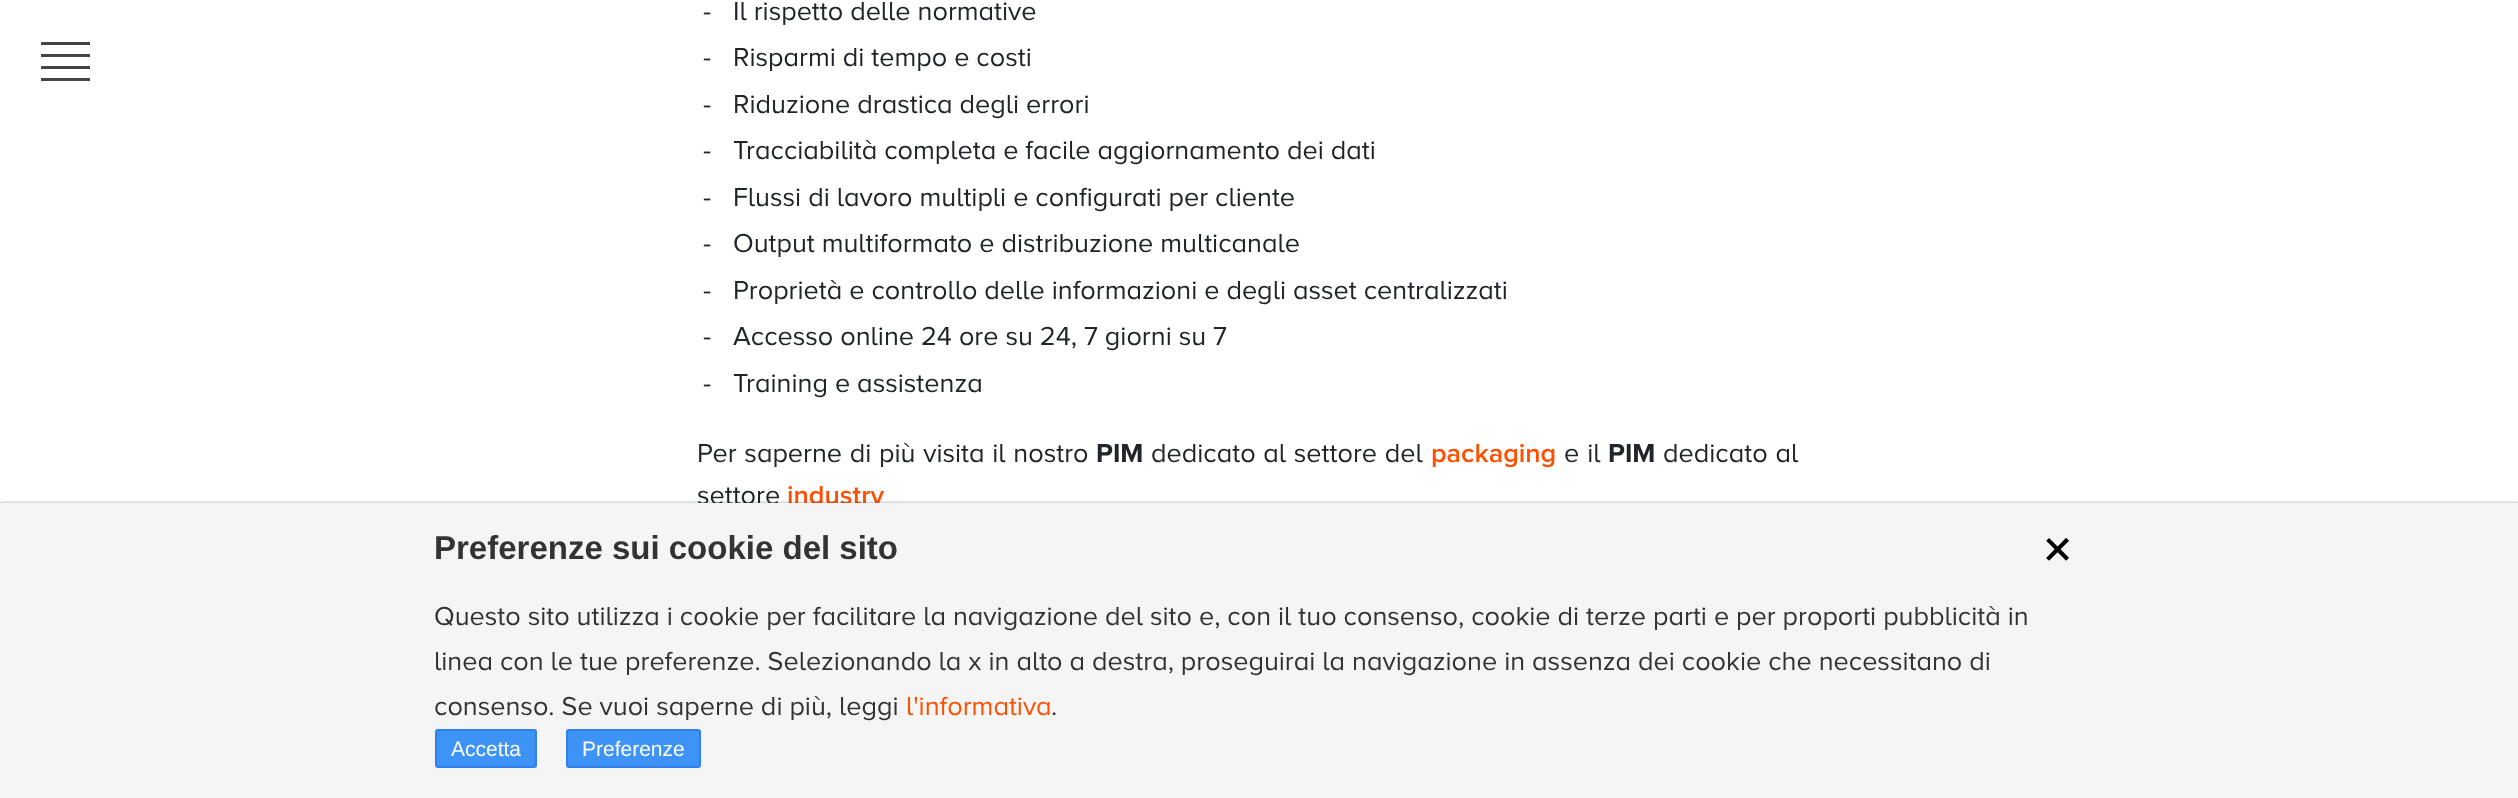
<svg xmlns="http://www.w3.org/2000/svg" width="2518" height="798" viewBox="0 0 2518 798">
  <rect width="100%" height="100%" fill="rgb(255,255,255)"/>
  <rect x="41" y="42" width="49" height="3" fill="rgb(68,68,68)"/>
  <rect x="41" y="54" width="49" height="3" fill="rgb(68,68,68)"/>
  <rect x="41" y="66" width="49" height="3" fill="rgb(68,68,68)"/>
  <rect x="41" y="78" width="49" height="3" fill="rgb(68,68,68)"/>
  <g font-family="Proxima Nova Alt" font-size="27" fill="rgb(33,37,41)">
    <text x="703" y="20">-</text>
    <text x="733" y="20">Il rispetto delle normative</text>
    <text x="703" y="66">-</text>
    <text x="733" y="66">Risparmi di tempo e costi</text>
    <text x="703" y="113">-</text>
    <text x="733" y="113">Riduzione drastica degli errori</text>
    <text x="703" y="159">-</text>
    <text x="733" y="159">Tracciabilità completa e facile aggiornamento dei dati</text>
    <text x="703" y="206">-</text>
    <text x="733" y="206">Flussi di lavoro multipli e configurati per cliente</text>
    <text x="703" y="252">-</text>
    <text x="733" y="252">Output multiformato e distribuzione multicanale</text>
    <text x="703" y="299">-</text>
    <text x="733" y="299">Proprietà e controllo delle informazioni e degli asset centralizzati</text>
    <text x="703" y="345">-</text>
    <text x="733" y="345">Accesso online 24 ore su 24, 7 giorni su 7</text>
    <text x="703" y="392">-</text>
    <text x="733" y="392">Training e assistenza</text>
    <text x="697" y="462" word-spacing="0.75">Per saperne di più visita il nostro</text>
  </g>
  <text x="1096" y="462" font-family="Proxima Nova Alt" font-size="27" font-weight="bold" fill="rgb(33,37,41)">PIM</text>
  <text x="1151" y="462" word-spacing="0.75" font-family="Proxima Nova Alt" font-size="27" fill="rgb(33,37,41)">dedicato al settore del</text>
  <text x="1431" y="462" font-family="Proxima Nova" font-size="27" font-weight="600" fill="rgb(254,80,0)">packaging</text>
  <text x="1564" y="462" word-spacing="1" font-family="Proxima Nova Alt" font-size="27" fill="rgb(33,37,41)">e il</text>
  <text x="1608" y="462" font-family="Proxima Nova Alt" font-size="27" font-weight="bold" fill="rgb(33,37,41)">PIM</text>
  <g font-family="Proxima Nova Alt" font-size="27" fill="rgb(33,37,41)">
    <text x="1663" y="462" word-spacing="1">dedicato al</text>
    <text x="697" y="504">settore</text>
  </g>
  <text x="787" y="504" font-family="Proxima Nova" font-size="27" font-weight="600" fill="rgb(254,80,0)">industry</text>
  <rect x="0" y="504" width="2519" height="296" fill="rgba(33,41,52,0.75)" filter="blur(2px)"/>
  <rect x="0" y="503" width="2518" height="295" fill="rgb(245,245,245)"/>
  <text x="434" y="559" font-family="Liberation Sans" font-size="33" font-weight="bold" fill="rgb(51,51,51)">Preferenze sui cookie del sito</text>
  <text x="2032" y="551" transform="rotate(45 2032 551)" font-family="Liberation Sans" font-size="58" fill="rgb(0,0,0)">+</text>
  <g font-family="Proxima Nova Alt" font-size="27" fill="rgb(51,51,51)">
    <text>
      <tspan x="434" y="625">Questo sito utilizza i cookie per facilitare la navigazione del sito e, con il tuo consenso, cookie di terze parti e per proporti pubblicità in</tspan>
      <tspan x="434" y="670">linea con le tue preferenze. Selezionando la x in alto a destra, proseguirai la navigazione in assenza dei cookie che necessitano di</tspan>
      <tspan x="434" y="715">consenso. Se vuoi saperne di più, leggi</tspan>
    </text>
  </g>
  <text x="906" y="715" font-family="Proxima Nova Alt" font-size="27" fill="rgb(254,80,0)">l'informativa</text>
  <text x="1051" y="715" font-family="Proxima Nova Alt" font-size="27" fill="rgb(51,51,51)">.</text>
  <rect x="436" y="730" width="100" height="37" rx="2" fill="rgb(61,148,246)" stroke="rgb(51,127,237)" stroke-width="2"/>
  <text x="451" y="756" font-family="Liberation Sans" font-size="21" fill="rgb(255,255,255)">Accetta</text>
  <rect x="567" y="730" width="133" height="37" rx="2" fill="rgb(61,148,246)" stroke="rgb(51,127,237)" stroke-width="2"/>
  <text x="582" y="756" font-family="Liberation Sans" font-size="21" fill="rgb(255,255,255)">Preferenze</text>
</svg>
